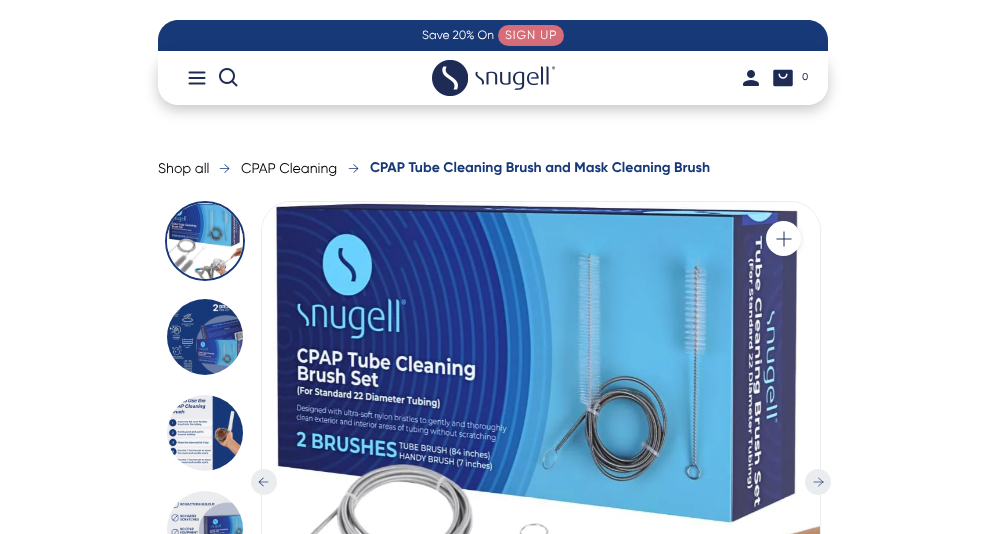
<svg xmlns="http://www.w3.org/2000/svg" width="986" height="534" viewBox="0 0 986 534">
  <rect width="100%" height="100%" fill="rgb(255,255,255)"/>
  <path d="M178 20H808C819 20 828 29 828 40V51H158V40C158 29 167 20 178 20Z" fill="rgb(24,57,120)"/>
  <text x="422" y="39" font-family="Gilroy" font-size="12" fill="rgb(255,255,255)">Save 20% On</text>
  <rect x="498" y="25" width="66" height="21" rx="10.5" fill="rgb(214,109,120)"/>
  <text x="505" y="39" font-family="Gilroy" font-size="12" letter-spacing="1" fill="rgb(255,255,255)">SIGN UP</text>
  <rect x="158" y="56" width="670" height="54" rx="20" fill="rgba(0,0,0,0.22)" filter="blur(7px)"/>
  <path d="M158 51H828V85C828 96 819 105 808 105H178C167 105 158 96 158 85Z" fill="rgb(255,255,255)"/>
  <path d="M189.5 72.5H204.5M189.5 78H204.5M189.5 83.5H204.5" fill="none" stroke="rgb(30,44,85)" stroke-width="2" stroke-linecap="round" stroke-linejoin="round"/>
  <image x="219" y="68" width="19" height="19" href="pic1.png"/>
  <image x="432" y="60" width="123" height="36" href="pic2.png"/>
  <image x="743" y="70" width="16" height="16" href="pic3.png"/>
  <image x="773" y="69" width="20" height="18" href="pic4.png"/>
  <text x="802" y="80" font-family="Gilroy" font-size="10" font-weight="500" fill="rgb(30,44,85)">0</text>
  <text x="158" y="173" font-family="Gilroy" font-size="14" fill="rgb(0,0,0)">Shop all</text>
  <image x="219" y="164" width="11" height="9" href="pic5.png"/>
  <text x="241" y="173" font-family="Gilroy" font-size="14" fill="rgb(0,0,0)">CPAP Cleaning</text>
  <image x="348" y="164" width="11" height="9" href="pic5.png"/>
  <text x="370" y="172" font-family="Gilroy" font-size="14" font-weight="bold" fill="rgb(24,57,120)">CPAP Tube Cleaning Brush and Mask Cleaning Brush</text>
  <circle cx="205" cy="241" r="39" fill="none" stroke="rgb(24,57,120)" stroke-width="2"/>
  <image x="167" y="203" width="76" height="76" href="pic6.png"/>
  <image x="167" y="299" width="76" height="76" href="pic7.png"/>
  <image x="167" y="395" width="76" height="76" href="pic8.png"/>
  <image x="167" y="491" width="76" height="43" href="pic9.png"/>
  <rect x="261.5" y="201.5" width="559" height="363" rx="29.5" fill="none" stroke="rgb(234,236,240)"/>
  <image x="262" y="202" width="558" height="332" href="pic10.png"/>
  <rect x="766" y="222" width="35" height="35" rx="17.5" fill="rgba(54,54,54,0.15)" filter="blur(2.5px)"/>
  <circle cx="783.5" cy="238.5" r="17.5" fill="rgb(255,255,255)"/>
  <path d="M784 232V246M777 239H791" fill="none" stroke="rgb(30,44,85)" stroke-linecap="square"/>
  <image x="251" y="469" width="26" height="26" href="pic11.png"/>
  <circle cx="818" cy="482" r="13" fill="rgb(234,236,240)"/>
  <path d="M814 482H823M823 482L818.5 486M823 482L818.5 478" fill="none" stroke="rgb(24,57,120)" stroke-width="0.7" stroke-linecap="round" stroke-linejoin="round"/>
</svg>
